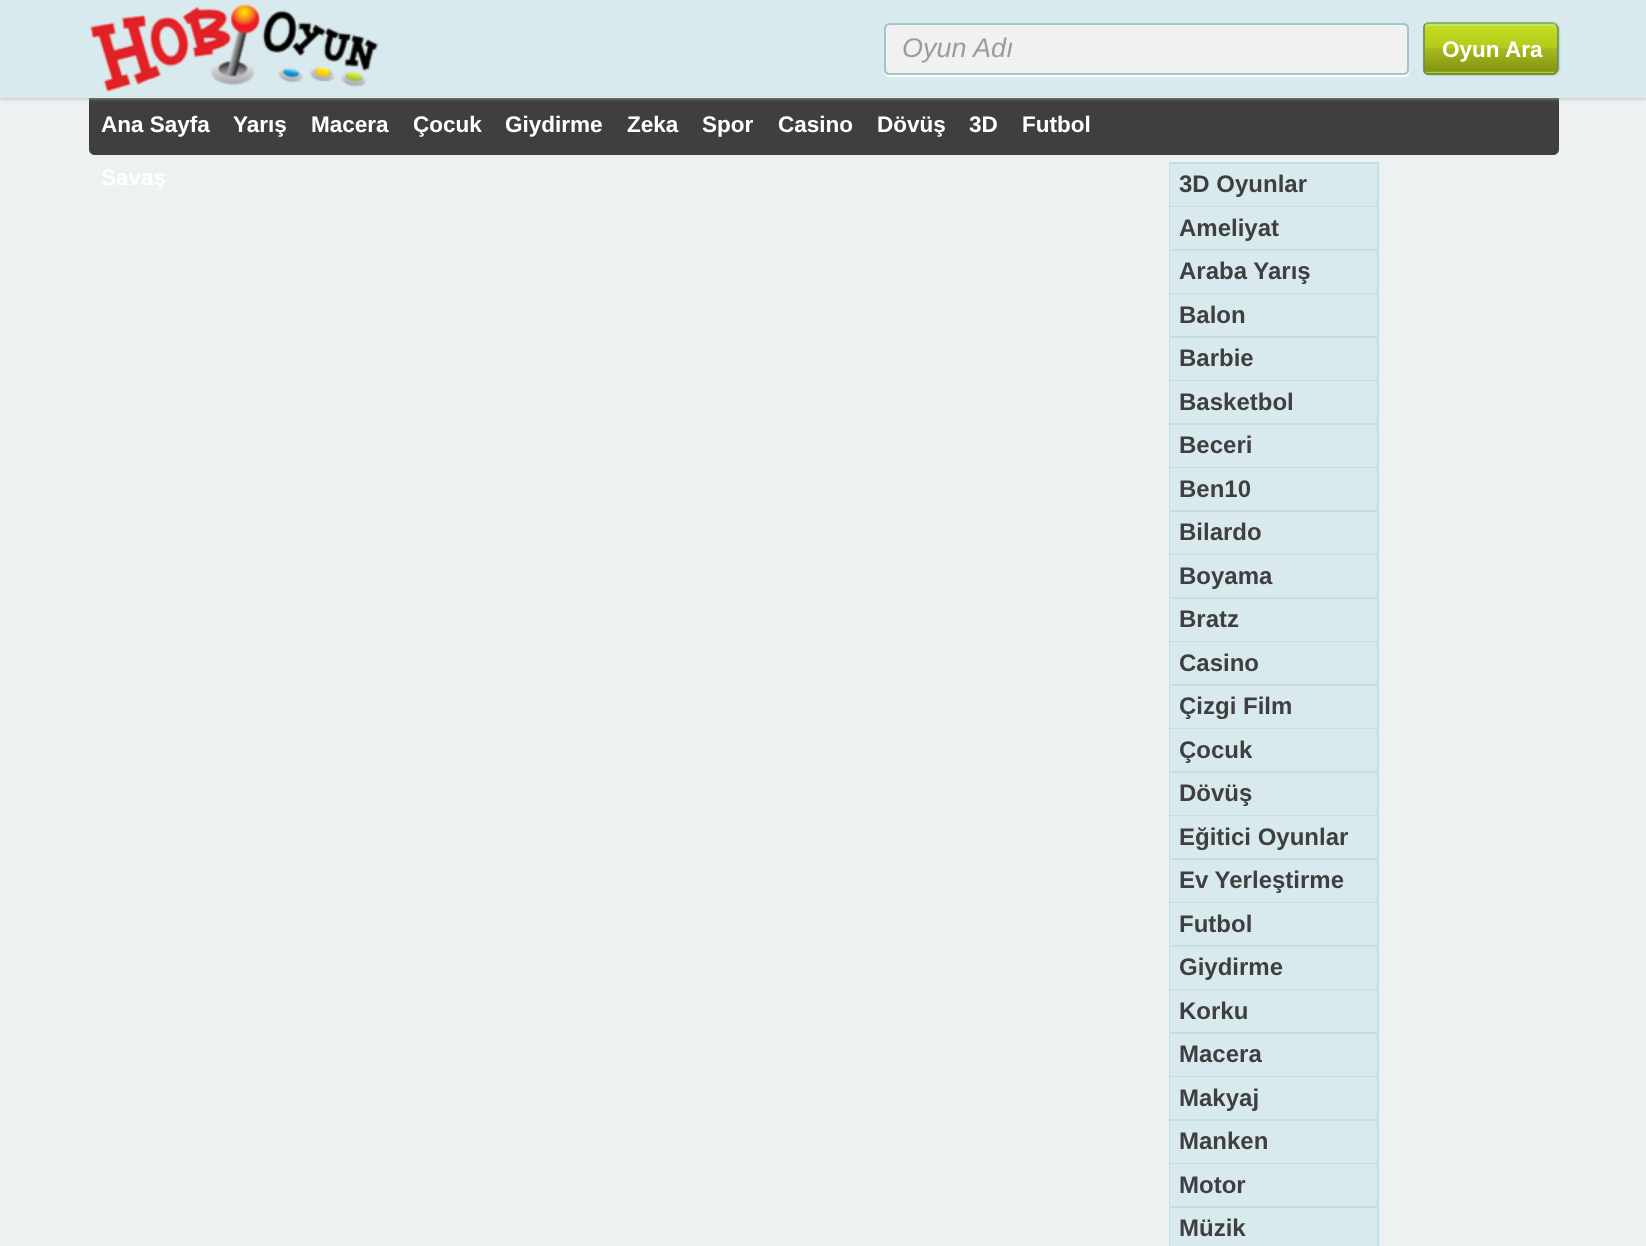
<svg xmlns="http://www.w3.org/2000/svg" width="1646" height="1246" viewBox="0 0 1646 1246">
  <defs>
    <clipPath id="clip1"><path d="M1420 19H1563V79H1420ZM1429 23H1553C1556.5 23 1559 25.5 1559 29V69C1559 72.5 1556.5 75 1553 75H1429C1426 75 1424 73 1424 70V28C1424 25 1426 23 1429 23Z" clip-rule="evenodd"/></clipPath>
  </defs>
  <rect width="100%" height="100%" fill="rgb(237,241,242)"/>
  <path d="M89 98H1559V149C1559 152.5 1556.5 155 1553 155H95C91.5 155 89 152.5 89 149Z" fill="rgb(63,63,63)"/>
  <rect x="0" y="0" width="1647" height="98" fill="rgb(170,170,170)" filter="blur(2px)"/>
  <rect x="0" y="0" width="1646" height="98" fill="rgb(217,234,238)"/>
  <image x="89" y="4" width="290" height="88" href="pic1.png"/>
  <path d="M884 71C884 75 887 77 890 77H1404C1407 77 1409 75 1409 72V29L1408 27V70C1408 73 1406 75 1404 75H890C887 75 885 74 884 71Z" fill="rgb(255,255,255)"/>
  <path d="M890 24H1404C1406 24 1408 26 1408 28V70C1408 72 1406 74 1404 74H890C887 74 885 72 885 69V29C885 26 887 24 890 24Z" fill="rgb(241,241,241)" stroke="rgb(164,195,202)" stroke-width="2"/>
  <text x="902" y="57" font-family="Liberation Sans" font-size="27" font-style="italic" fill="rgb(156,156,156)">Oyun Adı</text>
  <g clip-path="url(#clip1)">
    <rect x="1424" y="23" width="135" height="52" rx="6" fill="rgba(0,0,0,0.3)" filter="blur(1px)"/>
  </g>
  <image x="1423" y="22" width="136" height="53" href="pic2.png"/>
  <path d="M1428 26H1552C1555 26 1557 28 1557 30V29C1557 26 1555 24 1552 24H1428C1426 24 1425 25 1425 27V28C1425 27 1426 26 1428 26Z" fill="rgba(255,255,255,0.3)"/>
  <path d="M1425.5 24.5C1426 23.5 1427 23 1428 23H1552.5C1554 23 1555 24 1556 25" fill="none" stroke="rgb(126,186,124)" stroke-width="1.5"/>
  <path d="M1556 25C1557 26 1558 27 1558 28.5V69C1558 70.5 1557 71.5 1556 72.5" fill="none" stroke="rgb(87,142,87)" stroke-width="1.5"/>
  <path d="M1556 72.5C1555 73.5 1554 74 1552.5 74H1428C1427 74 1426 74 1425.5 73" fill="none" stroke="rgb(68,125,67)" stroke-width="1.5"/>
  <path d="M1425.5 73C1424.5 72.5 1424 71.5 1424 70.5V27C1424 26 1424.5 25 1425.5 24.5" fill="none" stroke="rgb(87,142,87)" stroke-width="1.5"/>
  <g font-family="Liberation Sans" font-size="22.5" font-weight="bold" fill="rgb(255,255,255)">
    <text x="1442" y="57">Oyun Ara</text>
    <text x="101" y="132">Ana Sayfa</text>
    <text x="233" y="132">Yarış</text>
    <text x="311" y="132">Macera</text>
    <text x="413" y="132">Çocuk</text>
    <text x="505" y="132">Giydirme</text>
    <text x="627" y="132">Zeka</text>
    <text x="702" y="132">Spor</text>
    <text x="778" y="132">Casino</text>
    <text x="877" y="132">Dövüş</text>
    <text x="969" y="132">3D</text>
    <text x="1022" y="132">Futbol</text>
    <text x="101" y="185">Savaş</text>
  </g>
  <rect x="1170" y="163" width="208" height="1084" fill="none" stroke="rgb(197,222,228)" stroke-width="2"/>
  <rect x="1170" y="164" width="207" height="42" fill="rgb(217,234,238)"/>
  <rect x="1170" y="206" width="207" height="1" fill="rgb(197,222,228)"/>
  <text x="1179" y="192" font-family="Liberation Sans" font-size="24" font-weight="bold" fill="rgb(63,63,63)">3D Oyunlar</text>
  <rect x="1170" y="207" width="207" height="42" fill="rgb(217,234,238)"/>
  <rect x="1170" y="249" width="207" height="2" fill="rgb(197,222,228)"/>
  <text x="1179" y="236" font-family="Liberation Sans" font-size="24" font-weight="bold" fill="rgb(63,63,63)">Ameliyat</text>
  <rect x="1170" y="251" width="207" height="42" fill="rgb(217,234,238)"/>
  <rect x="1170" y="293" width="207" height="1" fill="rgb(197,222,228)"/>
  <text x="1179" y="279" font-family="Liberation Sans" font-size="24" font-weight="bold" fill="rgb(63,63,63)">Araba Yarış</text>
  <rect x="1170" y="294" width="207" height="42" fill="rgb(217,234,238)"/>
  <rect x="1170" y="336" width="207" height="2" fill="rgb(197,222,228)"/>
  <text x="1179" y="323" font-family="Liberation Sans" font-size="24" font-weight="bold" fill="rgb(63,63,63)">Balon</text>
  <rect x="1170" y="338" width="207" height="42" fill="rgb(217,234,238)"/>
  <rect x="1170" y="380" width="207" height="1" fill="rgb(197,222,228)"/>
  <text x="1179" y="366" font-family="Liberation Sans" font-size="24" font-weight="bold" fill="rgb(63,63,63)">Barbie</text>
  <rect x="1170" y="381" width="207" height="42" fill="rgb(217,234,238)"/>
  <rect x="1170" y="423" width="207" height="2" fill="rgb(197,222,228)"/>
  <text x="1179" y="410" font-family="Liberation Sans" font-size="24" font-weight="bold" fill="rgb(63,63,63)">Basketbol</text>
  <rect x="1170" y="425" width="207" height="42" fill="rgb(217,234,238)"/>
  <rect x="1170" y="467" width="207" height="1" fill="rgb(197,222,228)"/>
  <text x="1179" y="453" font-family="Liberation Sans" font-size="24" font-weight="bold" fill="rgb(63,63,63)">Beceri</text>
  <rect x="1170" y="468" width="207" height="42" fill="rgb(217,234,238)"/>
  <rect x="1170" y="510" width="207" height="2" fill="rgb(197,222,228)"/>
  <text x="1179" y="497" font-family="Liberation Sans" font-size="24" font-weight="bold" fill="rgb(63,63,63)">Ben10</text>
  <rect x="1170" y="512" width="207" height="42" fill="rgb(217,234,238)"/>
  <rect x="1170" y="554" width="207" height="1" fill="rgb(197,222,228)"/>
  <text x="1179" y="540" font-family="Liberation Sans" font-size="24" font-weight="bold" fill="rgb(63,63,63)">Bilardo</text>
  <rect x="1170" y="555" width="207" height="42" fill="rgb(217,234,238)"/>
  <rect x="1170" y="597" width="207" height="2" fill="rgb(197,222,228)"/>
  <text x="1179" y="584" font-family="Liberation Sans" font-size="24" font-weight="bold" fill="rgb(63,63,63)">Boyama</text>
  <rect x="1170" y="599" width="207" height="42" fill="rgb(217,234,238)"/>
  <rect x="1170" y="641" width="207" height="1" fill="rgb(197,222,228)"/>
  <text x="1179" y="627" font-family="Liberation Sans" font-size="24" font-weight="bold" fill="rgb(63,63,63)">Bratz</text>
  <rect x="1170" y="642" width="207" height="42" fill="rgb(217,234,238)"/>
  <rect x="1170" y="684" width="207" height="2" fill="rgb(197,222,228)"/>
  <text x="1179" y="671" font-family="Liberation Sans" font-size="24" font-weight="bold" fill="rgb(63,63,63)">Casino</text>
  <rect x="1170" y="686" width="207" height="42" fill="rgb(217,234,238)"/>
  <rect x="1170" y="728" width="207" height="1" fill="rgb(197,222,228)"/>
  <text x="1179" y="714" font-family="Liberation Sans" font-size="24" font-weight="bold" fill="rgb(63,63,63)">Çizgi Film</text>
  <rect x="1170" y="729" width="207" height="42" fill="rgb(217,234,238)"/>
  <rect x="1170" y="771" width="207" height="2" fill="rgb(197,222,228)"/>
  <text x="1179" y="758" font-family="Liberation Sans" font-size="24" font-weight="bold" fill="rgb(63,63,63)">Çocuk</text>
  <rect x="1170" y="773" width="207" height="42" fill="rgb(217,234,238)"/>
  <rect x="1170" y="815" width="207" height="1" fill="rgb(197,222,228)"/>
  <text x="1179" y="801" font-family="Liberation Sans" font-size="24" font-weight="bold" fill="rgb(63,63,63)">Dövüş</text>
  <rect x="1170" y="816" width="207" height="42" fill="rgb(217,234,238)"/>
  <rect x="1170" y="858" width="207" height="2" fill="rgb(197,222,228)"/>
  <text x="1179" y="845" font-family="Liberation Sans" font-size="24" font-weight="bold" fill="rgb(63,63,63)">Eğitici Oyunlar</text>
  <rect x="1170" y="860" width="207" height="42" fill="rgb(217,234,238)"/>
  <rect x="1170" y="902" width="207" height="1" fill="rgb(197,222,228)"/>
  <text x="1179" y="888" font-family="Liberation Sans" font-size="24" font-weight="bold" fill="rgb(63,63,63)">Ev Yerleştirme</text>
  <rect x="1170" y="903" width="207" height="42" fill="rgb(217,234,238)"/>
  <rect x="1170" y="945" width="207" height="2" fill="rgb(197,222,228)"/>
  <text x="1179" y="932" font-family="Liberation Sans" font-size="24" font-weight="bold" fill="rgb(63,63,63)">Futbol</text>
  <rect x="1170" y="947" width="207" height="42" fill="rgb(217,234,238)"/>
  <rect x="1170" y="989" width="207" height="1" fill="rgb(197,222,228)"/>
  <text x="1179" y="975" font-family="Liberation Sans" font-size="24" font-weight="bold" fill="rgb(63,63,63)">Giydirme</text>
  <rect x="1170" y="990" width="207" height="42" fill="rgb(217,234,238)"/>
  <rect x="1170" y="1032" width="207" height="2" fill="rgb(197,222,228)"/>
  <text x="1179" y="1019" font-family="Liberation Sans" font-size="24" font-weight="bold" fill="rgb(63,63,63)">Korku</text>
  <rect x="1170" y="1034" width="207" height="42" fill="rgb(217,234,238)"/>
  <rect x="1170" y="1076" width="207" height="1" fill="rgb(197,222,228)"/>
  <text x="1179" y="1062" font-family="Liberation Sans" font-size="24" font-weight="bold" fill="rgb(63,63,63)">Macera</text>
  <rect x="1170" y="1077" width="207" height="42" fill="rgb(217,234,238)"/>
  <rect x="1170" y="1119" width="207" height="2" fill="rgb(197,222,228)"/>
  <text x="1179" y="1106" font-family="Liberation Sans" font-size="24" font-weight="bold" fill="rgb(63,63,63)">Makyaj</text>
  <rect x="1170" y="1121" width="207" height="42" fill="rgb(217,234,238)"/>
  <rect x="1170" y="1163" width="207" height="1" fill="rgb(197,222,228)"/>
  <text x="1179" y="1149" font-family="Liberation Sans" font-size="24" font-weight="bold" fill="rgb(63,63,63)">Manken</text>
  <rect x="1170" y="1164" width="207" height="42" fill="rgb(217,234,238)"/>
  <rect x="1170" y="1206" width="207" height="2" fill="rgb(197,222,228)"/>
  <text x="1179" y="1193" font-family="Liberation Sans" font-size="24" font-weight="bold" fill="rgb(63,63,63)">Motor</text>
  <rect x="1170" y="1208" width="207" height="38" fill="rgb(217,234,238)"/>
  <text x="1179" y="1236" font-family="Liberation Sans" font-size="24" font-weight="bold" fill="rgb(63,63,63)">Müzik</text>
</svg>
